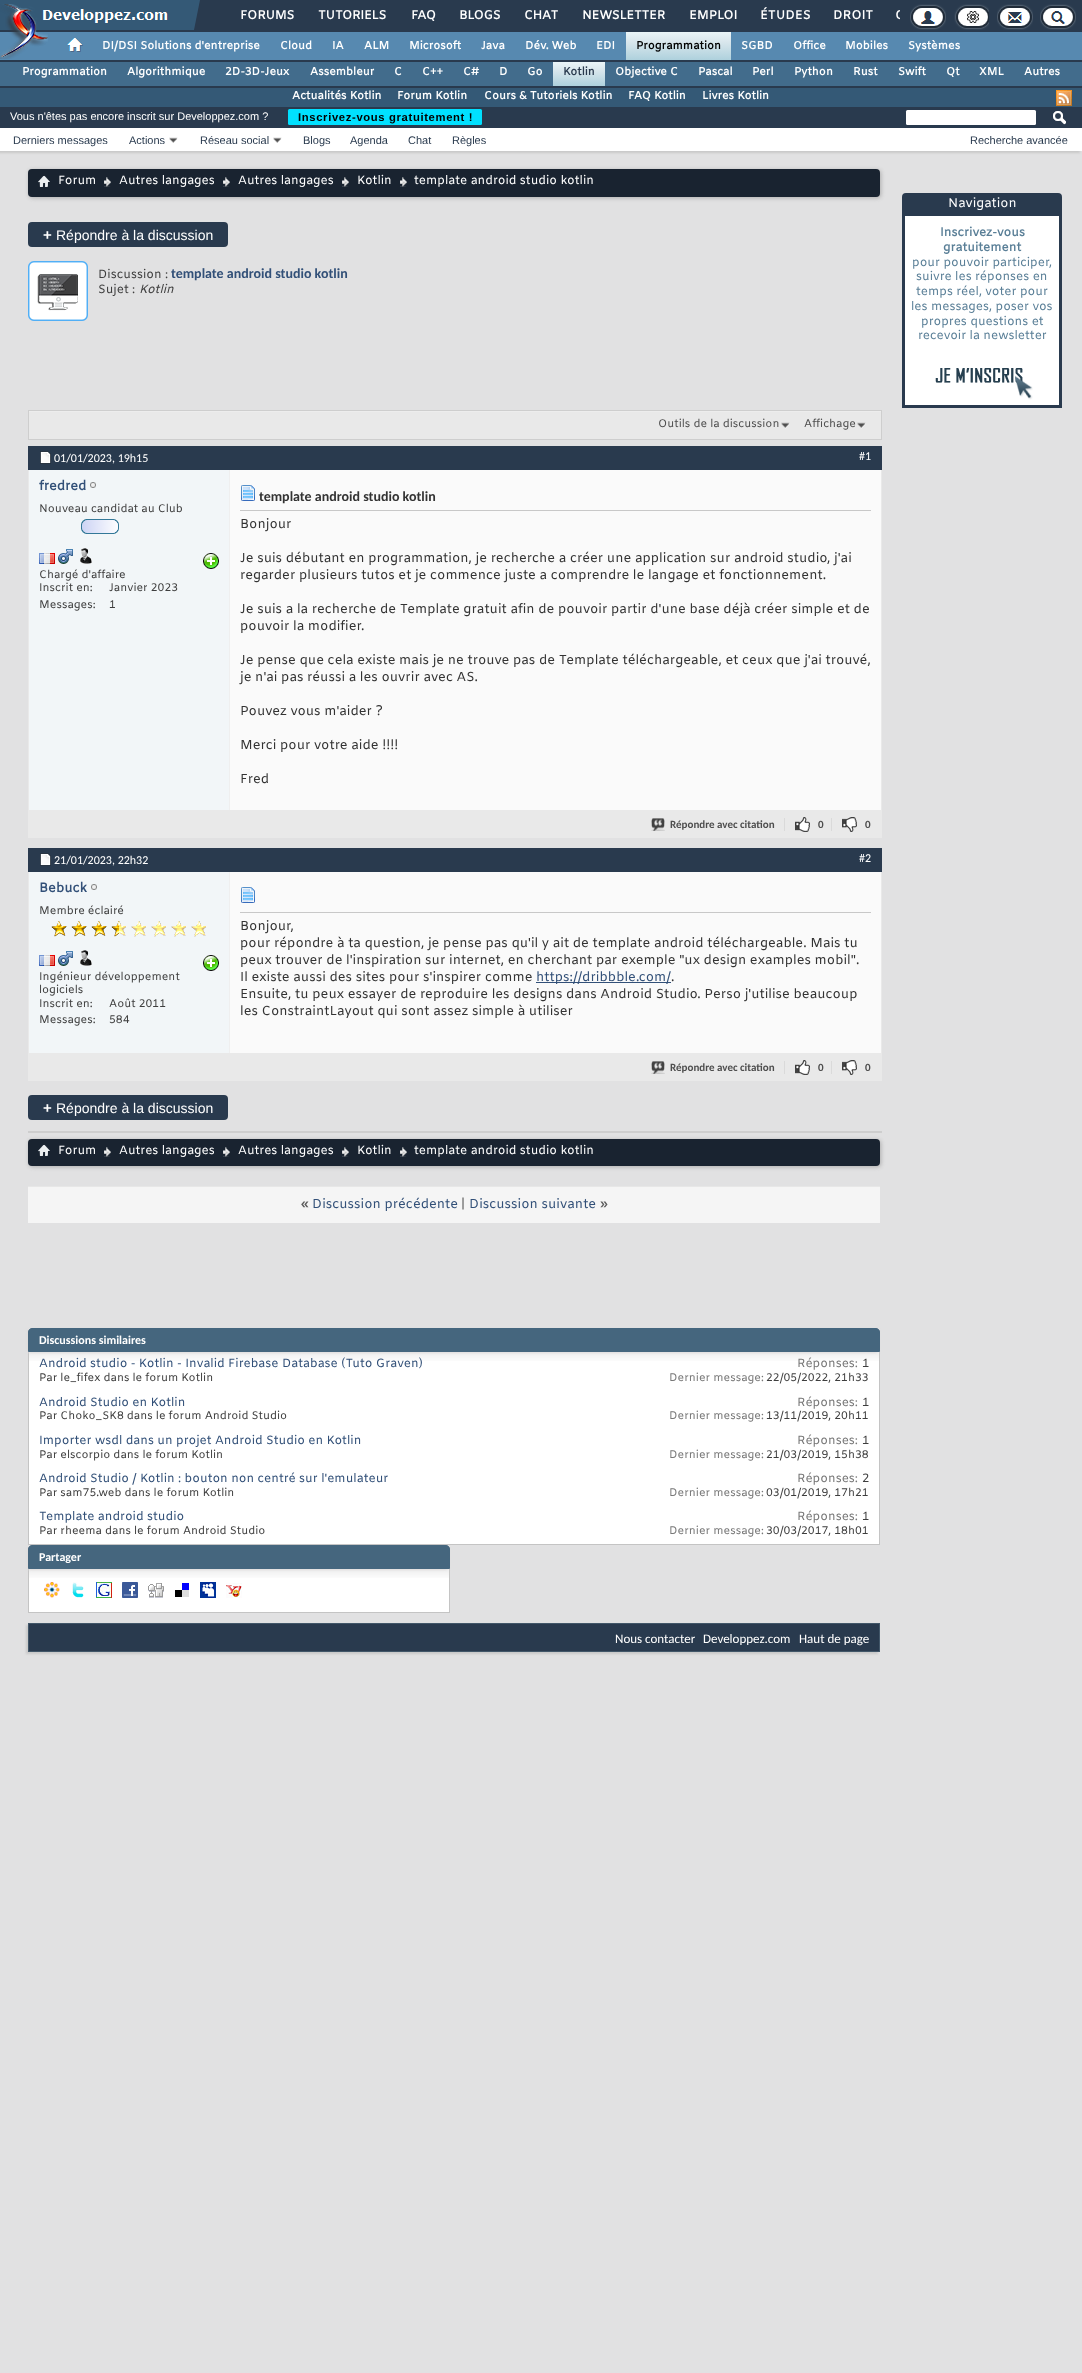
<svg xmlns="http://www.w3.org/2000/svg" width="1082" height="2373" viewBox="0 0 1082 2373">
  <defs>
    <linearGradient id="g1" gradientUnits="userSpaceOnUse" x1="679" y1="32" x2="679" y2="60"><stop offset="0" stop-color="rgb(234,245,248)"/><stop offset="0.37" stop-color="rgb(216,230,236)"/><stop offset="1" stop-color="rgb(174,209,221)"/></linearGradient>
    <linearGradient id="g2" gradientUnits="userSpaceOnUse" x1="579" y1="62" x2="579" y2="86"><stop offset="0" stop-color="rgb(234,245,248)"/><stop offset="0.37" stop-color="rgb(216,230,236)"/><stop offset="1" stop-color="rgb(174,209,221)"/></linearGradient>
  </defs>
  <rect width="100%" height="100%" fill="rgb(41,58,78)"/>
  <rect x="0" y="0" width="200" height="30" fill="rgb(52,89,118)"/>
  <image x="42" y="9" width="126" height="14" href="pic2.png"/>
  <rect x="0" y="32" width="1082" height="28" fill="rgb(87,137,176)"/>
  <image x="0" y="4" width="48" height="55" href="pic1.png"/>
  <path d="M200 30H194L200 0Z" fill="rgb(41,58,78)"/>
  <g font-family="Amiko" font-size="12.25" font-weight="bold" letter-spacing="-0.25" fill="rgb(255,255,255)">
    <text x="240" y="19">FORUMS</text>
    <text x="318" y="19">TUTORIELS</text>
    <text x="411" y="19">FAQ</text>
    <text x="459" y="19">BLOGS</text>
    <text x="524" y="19">CHAT</text>
    <text x="582" y="19">NEWSLETTER</text>
  </g>
  <g font-family="Amiko" font-size="12.25" font-weight="bold" fill="rgb(255,255,255)">
    <text x="689" y="19">EMPLOI</text>
    <text x="760" y="19">ÉTUDES</text>
    <text x="833" y="19">DROIT</text>
    <text x="895" y="19">C</text>
  </g>
  <rect x="900" y="10" width="3" height="10" fill="rgb(41,58,78)"/>
  <image x="910" y="4" width="36" height="26" href="pic3.png"/>
  <image x="954" y="4" width="35" height="26" href="pic4.png"/>
  <image x="997" y="4" width="36" height="26" href="pic5.png"/>
  <image x="1040" y="4" width="36" height="26" href="pic6.png"/>
  <image x="67" y="38" width="16" height="14" href="pic7.png"/>
  <g font-family="Amiko" font-size="11" font-weight="bold" fill="rgb(255,255,255)">
    <text x="102" y="49">DI/DSI Solutions d'entreprise</text>
    <text x="280" y="49">Cloud</text>
    <text x="332" y="49">IA</text>
    <text x="364" y="49">ALM</text>
    <text x="409" y="49">Microsoft</text>
    <text x="481" y="49">Java</text>
    <text x="525" y="49">Dév. Web</text>
    <text x="596" y="49">EDI</text>
  </g>
  <rect x="626" y="32" width="105" height="28" fill="url(#g1)"/>
  <text x="636" y="49" font-family="Amiko" font-size="11" font-weight="bold" fill="rgb(0,0,0)">Programmation</text>
  <g font-family="Amiko" font-size="11" font-weight="bold" fill="rgb(255,255,255)">
    <text x="741" y="49">SGBD</text>
    <text x="793" y="49">Office</text>
    <text x="845" y="49">Mobiles</text>
    <text x="908" y="49">Systèmes</text>
  </g>
  <rect x="0" y="62" width="1082" height="24" fill="rgb(66,108,140)"/>
  <g font-family="Amiko" font-size="11" font-weight="bold" fill="rgb(255,255,255)">
    <text x="22" y="75">Programmation</text>
    <text x="127" y="75">Algorithmique</text>
    <text x="225" y="75">2D-3D-Jeux</text>
    <text x="310" y="75">Assembleur</text>
    <text x="394" y="75">C</text>
    <text x="422" y="75">C++</text>
    <text x="463" y="75">C#</text>
    <text x="499" y="75">D</text>
    <text x="527" y="75">Go</text>
  </g>
  <rect x="553" y="62" width="52" height="24" fill="url(#g2)"/>
  <text x="563" y="75" font-family="Amiko" font-size="11" font-weight="bold" fill="rgb(41,58,78)">Kotlin</text>
  <g font-family="Amiko" font-size="11" font-weight="bold" fill="rgb(255,255,255)">
    <text x="615" y="75">Objective C</text>
    <text x="698" y="75">Pascal</text>
    <text x="752" y="75">Perl</text>
    <text x="794" y="75">Python</text>
    <text x="853" y="75">Rust</text>
    <text x="898" y="75">Swift</text>
    <text x="946" y="75">Qt</text>
    <text x="979" y="75">XML</text>
    <text x="1024" y="75">Autres</text>
  </g>
  <rect x="0" y="88" width="1082" height="19" fill="rgb(52,89,118)"/>
  <g font-family="Amiko" font-size="11" font-weight="bold" fill="rgb(255,255,255)">
    <text x="292" y="99">Actualités Kotlin</text>
    <text x="397" y="99">Forum Kotlin</text>
    <text x="484" y="99">Cours &amp; Tutoriels Kotlin</text>
    <text x="628" y="99">FAQ Kotlin</text>
    <text x="702" y="99">Livres Kotlin</text>
  </g>
  <image x="1056" y="90" width="16" height="16" href="pic8.png"/>
  <rect x="0" y="151" width="1082" height="2173" fill="rgb(225,225,226)"/>
  <rect x="-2" y="109" width="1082" height="44" fill="rgb(200,200,200)" filter="blur(1px)"/>
  <rect x="0" y="128" width="1082" height="23" fill="rgb(255,255,255)"/>
  <rect x="0" y="107" width="1082" height="21" fill="rgb(41,58,78)"/>
  <text x="10" y="120" font-family="Liberation Sans" font-size="11" fill="rgb(255,255,255)">Vous n'êtes pas encore inscrit sur Developpez.com ?</text>
  <rect x="288" y="109" width="194" height="16" rx="1.5" fill="rgb(0,224,255)"/>
  <text x="298" y="121" font-family="Liberation Sans" font-size="11.25" font-weight="bold" letter-spacing="0.65" fill="rgb(0,0,0)">Inscrivez-vous gratuitement !</text>
  <g font-family="Liberation Sans" font-size="11" fill="rgb(41,58,78)">
    <text x="13" y="144">Derniers messages</text>
    <text x="129" y="144">Actions</text>
  </g>
  <image x="169" y="137" width="9" height="6" href="pic9.png"/>
  <text x="200" y="144" font-family="Liberation Sans" font-size="11" fill="rgb(41,58,78)">Réseau social</text>
  <image x="273" y="137" width="9" height="6" href="pic9.png"/>
  <g font-family="Liberation Sans" font-size="11" fill="rgb(41,58,78)">
    <text x="303" y="144">Blogs</text>
    <text x="350" y="144">Agenda</text>
    <text x="408" y="144">Chat</text>
    <text x="452" y="144">Règles</text>
  </g>
  <rect x="906" y="110" width="130" height="15" rx="1.5" fill="rgb(255,255,255)"/>
  <image x="1053" y="111" width="13" height="14" href="pic10.png"/>
  <text x="970" y="144" font-family="Liberation Sans" font-size="11" fill="rgb(41,58,78)">Recherche avancée</text>
  <rect x="29" y="170" width="852" height="28" rx="4" fill="rgb(173,173,173)" filter="blur(2px)"/>
  <rect x="28" y="169" width="852" height="28" rx="4" fill="rgb(25,35,48)"/>
  <image x="38" y="175" width="12" height="12" href="pic11.png"/>
  <image x="104" y="177" width="7" height="10" href="pic12.png"/>
  <text x="58" y="184" font-family="Amiko" font-size="12" fill="rgb(255,255,255)">Forum</text>
  <image x="223" y="177" width="7" height="10" href="pic12.png"/>
  <text x="119" y="184" font-family="Amiko" font-size="12" fill="rgb(255,255,255)">Autres langages</text>
  <image x="342" y="177" width="7" height="10" href="pic12.png"/>
  <text x="238" y="184" font-family="Amiko" font-size="12" fill="rgb(255,255,255)">Autres langages</text>
  <image x="400" y="177" width="7" height="10" href="pic12.png"/>
  <g font-family="Amiko" font-size="12" fill="rgb(255,255,255)">
    <text x="357" y="184">Kotlin</text>
    <text x="414" y="184">template android studio kotlin</text>
  </g>
  <rect x="28" y="222" width="200" height="25" rx="4" fill="rgb(41,58,78)"/>
  <text x="43" y="240" font-family="Liberation Sans" font-size="15" font-weight="bold" fill="rgb(255,255,255)">+</text>
  <text x="56" y="240" font-family="Liberation Sans" font-size="14" fill="rgb(255,255,255)">Répondre à la discussion</text>
  <image x="28" y="261" width="60" height="60" href="pic13.png"/>
  <text x="98" y="278" font-family="Amiko" font-size="12" fill="rgb(62,62,62)">Discussion :</text>
  <text x="171" y="278" font-family="Carlito" font-size="14" font-weight="bold" fill="rgb(50,80,120)">template android studio kotlin</text>
  <text x="98" y="293" font-family="Amiko" font-size="12" fill="rgb(62,62,62)">Sujet :</text>
  <text x="139" y="293" font-family="Amiko" font-size="12" font-style="italic" fill="rgb(62,62,62)">Kotlin</text>
  <rect x="29" y="412" width="852" height="27" fill="rgb(233,233,233)"/>
  <rect x="28" y="411" width="854" height="1" fill="rgb(237,237,237)"/>
  <rect x="28.5" y="410.5" width="853" height="29" fill="none" stroke="rgb(206,206,206)"/>
  <image x="781" y="422" width="9" height="7" href="pic14.png"/>
  <text x="658" y="427" font-family="Amiko" font-size="11" fill="rgb(78,78,78)">Outils de la discussion</text>
  <image x="857" y="422" width="9" height="7" href="pic14.png"/>
  <text x="804" y="427" font-family="Amiko" font-size="11" fill="rgb(78,78,78)">Affichage</text>
  <rect x="28.5" y="446.5" width="853" height="391" fill="none" stroke="rgb(233,233,233)"/>
  <rect x="28" y="446" width="854" height="24" fill="rgb(41,58,78)"/>
  <image x="40" y="451" width="11" height="13" href="pic15.png"/>
  <g font-family="Carlito" font-size="12" fill="rgb(255,255,255)">
    <text x="54" y="462">01/01/2023, 19h15</text>
    <text x="859" y="460">#1</text>
  </g>
  <rect x="29" y="470" width="200" height="340" fill="rgb(242,246,248)"/>
  <text x="39" y="490" font-family="Amiko" font-size="13" font-weight="bold" fill="rgb(50,80,120)">fredred</text>
  <image x="90" y="482" width="6" height="6" href="pic16.png"/>
  <text x="39" y="512" font-family="Amiko" font-size="11" fill="rgb(62,62,62)">Nouveau candidat au Club</text>
  <image x="81" y="519" width="38" height="15" href="pic17.png"/>
  <image x="203" y="553" width="16" height="16" href="pic18.png"/>
  <image x="39" y="553" width="16" height="11" href="pic19.png"/>
  <image x="58" y="549" width="15" height="15" href="pic20.png"/>
  <image x="80" y="548" width="12" height="16" href="pic21.png"/>
  <g font-family="Amiko" font-size="11" fill="rgb(62,62,62)">
    <text>
      <tspan x="39" y="578">Chargé d'affaire</tspan>
      <tspan x="39" y="591">Inscrit en:</tspan>
    </text>
    <text x="109" y="591">Janvier 2023</text>
    <text x="39" y="608">Messages:</text>
    <text x="109" y="608">1</text>
  </g>
  <rect x="230" y="470" width="651" height="340" fill="rgb(250,250,250)"/>
  <rect x="229" y="470" width="1" height="340" fill="rgb(239,239,239)"/>
  <rect x="240" y="510" width="631" height="1" fill="rgb(200,200,200)"/>
  <image x="241" y="485" width="14" height="16" href="pic22.png"/>
  <text x="259" y="501" font-family="Carlito" font-size="14" font-weight="bold" fill="rgb(51,51,51)">template android studio kotlin</text>
  <g font-family="Amiko" font-size="13" fill="rgb(51,51,51)">
    <text x="240" y="528">Bonjour</text>
    <text>
      <tspan x="240" y="562">Je suis débutant en programmation, je recherche a créer une application sur android studio, j'ai</tspan>
      <tspan x="240" y="579">regarder plusieurs tutos et je commence juste a comprendre le langage et fonctionnement.</tspan>
    </text>
    <text>
      <tspan x="240" y="613">Je suis a la recherche de Template gratuit afin de pouvoir partir d'une base déjà créer simple et de</tspan>
      <tspan x="240" y="630">pouvoir la modifier.</tspan>
    </text>
    <text>
      <tspan x="240" y="664">Je pense que cela existe mais je ne trouve pas de Template téléchargeable, et ceux que j'ai trouvé,</tspan>
      <tspan x="240" y="681">je n'ai pas réussi a les ouvrir avec AS.</tspan>
    </text>
    <text x="240" y="715">Pouvez vous m'aider ?</text>
    <text x="240" y="749">Merci pour votre aide !!!!</text>
    <text x="240" y="783">Fred</text>
  </g>
  <rect x="29" y="810" width="852" height="27" fill="rgb(233,233,233)"/>
  <image x="651" y="818" width="14" height="13" href="pic23.png"/>
  <text x="670" y="828" font-family="Carlito" font-size="11" font-weight="bold" fill="rgb(78,78,78)">Répondre avec citation</text>
  <rect x="784" y="818" width="1" height="13" fill="rgb(218,218,218)"/>
  <image x="795" y="817" width="15" height="15" href="pic24.png"/>
  <text x="818" y="828" font-family="Carlito" font-size="11" font-weight="bold" fill="rgb(78,78,78)">0</text>
  <rect x="831" y="818" width="1" height="13" fill="rgb(218,218,218)"/>
  <image x="842" y="817" width="15" height="15" href="pic25.png"/>
  <text x="865" y="828" font-family="Carlito" font-size="11" font-weight="bold" fill="rgb(78,78,78)">0</text>
  <rect x="28.5" y="848.5" width="853" height="232" fill="none" stroke="rgb(233,233,233)"/>
  <rect x="28" y="848" width="854" height="24" fill="rgb(41,58,78)"/>
  <image x="40" y="853" width="11" height="13" href="pic15.png"/>
  <g font-family="Carlito" font-size="12" fill="rgb(255,255,255)">
    <text x="54" y="864">21/01/2023, 22h32</text>
    <text x="859" y="862">#2</text>
  </g>
  <rect x="29" y="872" width="200" height="181" fill="rgb(242,246,248)"/>
  <text x="39" y="892" font-family="Amiko" font-size="13" font-weight="bold" fill="rgb(50,80,120)">Bebuck</text>
  <image x="91" y="884" width="6" height="6" href="pic16.png"/>
  <text x="39" y="914" font-family="Amiko" font-size="11" fill="rgb(62,62,62)">Membre éclairé</text>
  <image x="51" y="921" width="16" height="16" href="pic26.png"/>
  <image x="71" y="921" width="16" height="16" href="pic26.png"/>
  <image x="91" y="921" width="16" height="16" href="pic26.png"/>
  <image x="111" y="921" width="16" height="16" href="pic27.png"/>
  <image x="131" y="921" width="16" height="16" href="pic28.png"/>
  <image x="151" y="921" width="16" height="16" href="pic28.png"/>
  <image x="171" y="921" width="16" height="16" href="pic28.png"/>
  <image x="191" y="921" width="16" height="16" href="pic28.png"/>
  <image x="203" y="955" width="16" height="16" href="pic18.png"/>
  <image x="39" y="955" width="16" height="11" href="pic19.png"/>
  <image x="58" y="951" width="15" height="15" href="pic20.png"/>
  <image x="80" y="950" width="12" height="16" href="pic21.png"/>
  <g font-family="Amiko" font-size="11" fill="rgb(62,62,62)">
    <text>
      <tspan x="39" y="980">Ingénieur développement</tspan>
      <tspan x="39" y="993">logiciels</tspan>
      <tspan x="39" y="1007">Inscrit en:</tspan>
    </text>
    <text x="109" y="1007">Août 2011</text>
    <text x="39" y="1023">Messages:</text>
    <text x="109" y="1023">584</text>
  </g>
  <rect x="230" y="872" width="651" height="181" fill="rgb(250,250,250)"/>
  <rect x="229" y="872" width="1" height="181" fill="rgb(239,239,239)"/>
  <rect x="240" y="912" width="631" height="1" fill="rgb(200,200,200)"/>
  <image x="241" y="887" width="14" height="16" href="pic22.png"/>
  <g font-family="Amiko" font-size="13" fill="rgb(51,51,51)">
    <text>
      <tspan x="240" y="930">Bonjour,</tspan>
      <tspan x="240" y="947">pour répondre à ta question, je pense pas qu'il y ait de template android téléchargeable. Mais tu</tspan>
      <tspan x="240" y="964">peux trouver de l'inspiration sur internet, en cherchant par exemple "ux design examples mobil".</tspan>
      <tspan x="240" y="981">Il existe aussi des sites pour s'inspirer comme</tspan>
    </text>
  </g>
  <rect x="536" y="982" width="135" height="1" fill="rgb(50,80,120)"/>
  <text x="536" y="981" font-family="Amiko" font-size="13" fill="rgb(50,80,120)">https://dribbble.com/</text>
  <g font-family="Amiko" font-size="13" fill="rgb(51,51,51)">
    <text x="671" y="981">.</text>
    <text>
      <tspan x="240" y="998">Ensuite, tu peux essayer de reproduire les designs dans Android Studio. Perso j'utilise beaucoup</tspan>
      <tspan x="240" y="1015">les ConstraintLayout qui sont assez simple à utiliser</tspan>
    </text>
  </g>
  <rect x="29" y="1053" width="852" height="27" fill="rgb(233,233,233)"/>
  <image x="651" y="1061" width="14" height="13" href="pic23.png"/>
  <text x="670" y="1071" font-family="Carlito" font-size="11" font-weight="bold" fill="rgb(78,78,78)">Répondre avec citation</text>
  <rect x="784" y="1061" width="1" height="13" fill="rgb(218,218,218)"/>
  <image x="795" y="1060" width="15" height="15" href="pic24.png"/>
  <text x="818" y="1071" font-family="Carlito" font-size="11" font-weight="bold" fill="rgb(78,78,78)">0</text>
  <rect x="831" y="1061" width="1" height="13" fill="rgb(218,218,218)"/>
  <image x="842" y="1060" width="15" height="15" href="pic25.png"/>
  <text x="865" y="1071" font-family="Carlito" font-size="11" font-weight="bold" fill="rgb(78,78,78)">0</text>
  <rect x="28" y="1095" width="200" height="25" rx="4" fill="rgb(41,58,78)"/>
  <text x="43" y="1113" font-family="Liberation Sans" font-size="15" font-weight="bold" fill="rgb(255,255,255)">+</text>
  <text x="56" y="1113" font-family="Liberation Sans" font-size="14" fill="rgb(255,255,255)">Répondre à la discussion</text>
  <rect x="28" y="1131" width="854" height="2" fill="rgb(206,206,206)"/>
  <rect x="29" y="1140" width="852" height="27" rx="4" fill="rgb(173,173,173)" filter="blur(2px)"/>
  <rect x="28" y="1139" width="852" height="27" rx="4" fill="rgb(25,35,48)"/>
  <image x="38" y="1144" width="12" height="12" href="pic11.png"/>
  <image x="104" y="1147" width="7" height="10" href="pic12.png"/>
  <text x="58" y="1154" font-family="Amiko" font-size="12" fill="rgb(255,255,255)">Forum</text>
  <image x="223" y="1147" width="7" height="10" href="pic12.png"/>
  <text x="119" y="1154" font-family="Amiko" font-size="12" fill="rgb(255,255,255)">Autres langages</text>
  <image x="342" y="1147" width="7" height="10" href="pic12.png"/>
  <text x="238" y="1154" font-family="Amiko" font-size="12" fill="rgb(255,255,255)">Autres langages</text>
  <image x="400" y="1147" width="7" height="10" href="pic12.png"/>
  <g font-family="Amiko" font-size="12" fill="rgb(255,255,255)">
    <text x="357" y="1154">Kotlin</text>
    <text x="414" y="1154">template android studio kotlin</text>
  </g>
  <rect x="28" y="1187" width="852" height="36" fill="rgb(245,245,245)"/>
  <rect x="28" y="1186" width="852" height="1" fill="rgb(231,231,231)"/>
  <text x="301" y="1208" font-family="Amiko" font-size="13" font-weight="bold" fill="rgb(93,93,93)">«</text>
  <text x="312" y="1208" font-family="Amiko" font-size="13" fill="rgb(50,80,120)">Discussion précédente</text>
  <text x="461" y="1208" font-family="Amiko" font-size="13" fill="rgb(93,93,93)">|</text>
  <text x="469" y="1208" font-family="Amiko" font-size="13" fill="rgb(50,80,120)">Discussion suivante</text>
  <text x="600" y="1208" font-family="Amiko" font-size="13" font-weight="bold" fill="rgb(93,93,93)">»</text>
  <rect x="29" y="1352" width="850" height="192" fill="rgb(255,255,255)"/>
  <image x="29" y="1352" width="850" height="9" href="pic29.png"/>
  <rect x="879" y="1352" width="1" height="193" fill="rgb(196,196,196)"/>
  <rect x="28" y="1544" width="852" height="1" fill="rgb(196,196,196)"/>
  <rect x="28" y="1352" width="1" height="193" fill="rgb(196,196,196)"/>
  <rect x="27" y="1329" width="852" height="24" rx="4" fill="rgb(222,219,219)" filter="blur(1px)"/>
  <path d="M32 1328.5H876C878 1328.5 879.5 1330 879.5 1332V1351.5H28.5V1332C28.5 1330 30 1328.5 32 1328.5Z" fill="rgb(69,102,126)" stroke="rgb(69,102,126)"/>
  <text x="39" y="1344" font-family="Carlito" font-size="12" font-weight="bold" fill="rgb(255,255,255)">Discussions similaires</text>
  <text x="39" y="1367" font-family="Amiko" font-size="12" fill="rgb(50,80,120)">Android studio - Kotlin - Invalid Firebase Database (Tuto Graven)</text>
  <text x="39" y="1381" font-family="Amiko" font-size="11" fill="rgb(62,62,62)">Par le_fifex dans le forum Kotlin</text>
  <text x="797" y="1367" font-family="Amiko" font-size="12" fill="rgb(119,119,119)">Réponses:</text>
  <text x="862" y="1367" font-family="Amiko" font-size="12" fill="rgb(62,62,62)">1</text>
  <text x="669" y="1381" font-family="Amiko" font-size="11" fill="rgb(119,119,119)">Dernier message:</text>
  <text x="766" y="1381" font-family="Amiko" font-size="11" fill="rgb(62,62,62)">22/05/2022, 21h33</text>
  <text x="39" y="1406" font-family="Amiko" font-size="12" fill="rgb(50,80,120)">Android Studio en Kotlin</text>
  <text x="39" y="1419" font-family="Amiko" font-size="11" fill="rgb(62,62,62)">Par Choko_SK8 dans le forum Android Studio</text>
  <text x="797" y="1406" font-family="Amiko" font-size="12" fill="rgb(119,119,119)">Réponses:</text>
  <text x="862" y="1406" font-family="Amiko" font-size="12" fill="rgb(62,62,62)">1</text>
  <text x="669" y="1419" font-family="Amiko" font-size="11" fill="rgb(119,119,119)">Dernier message:</text>
  <text x="766" y="1419" font-family="Amiko" font-size="11" fill="rgb(62,62,62)">13/11/2019, 20h11</text>
  <text x="39" y="1444" font-family="Amiko" font-size="12" fill="rgb(50,80,120)">Importer wsdl dans un projet Android Studio en Kotlin</text>
  <text x="39" y="1458" font-family="Amiko" font-size="11" fill="rgb(62,62,62)">Par elscorpio dans le forum Kotlin</text>
  <text x="797" y="1444" font-family="Amiko" font-size="12" fill="rgb(119,119,119)">Réponses:</text>
  <text x="862" y="1444" font-family="Amiko" font-size="12" fill="rgb(62,62,62)">1</text>
  <text x="669" y="1458" font-family="Amiko" font-size="11" fill="rgb(119,119,119)">Dernier message:</text>
  <text x="766" y="1458" font-family="Amiko" font-size="11" fill="rgb(62,62,62)">21/03/2019, 15h38</text>
  <text x="39" y="1482" font-family="Amiko" font-size="12" fill="rgb(50,80,120)">Android Studio / Kotlin : bouton non centré sur l'emulateur</text>
  <text x="39" y="1496" font-family="Amiko" font-size="11" fill="rgb(62,62,62)">Par sam75.web dans le forum Kotlin</text>
  <text x="797" y="1482" font-family="Amiko" font-size="12" fill="rgb(119,119,119)">Réponses:</text>
  <text x="862" y="1482" font-family="Amiko" font-size="12" fill="rgb(62,62,62)">2</text>
  <text x="669" y="1496" font-family="Amiko" font-size="11" fill="rgb(119,119,119)">Dernier message:</text>
  <text x="766" y="1496" font-family="Amiko" font-size="11" fill="rgb(62,62,62)">03/01/2019, 17h21</text>
  <text x="39" y="1520" font-family="Amiko" font-size="12" fill="rgb(50,80,120)">Template android studio</text>
  <text x="39" y="1534" font-family="Amiko" font-size="11" fill="rgb(62,62,62)">Par rheema dans le forum Android Studio</text>
  <text x="797" y="1520" font-family="Amiko" font-size="12" fill="rgb(119,119,119)">Réponses:</text>
  <text x="862" y="1520" font-family="Amiko" font-size="12" fill="rgb(62,62,62)">1</text>
  <text x="669" y="1534" font-family="Amiko" font-size="11" fill="rgb(119,119,119)">Dernier message:</text>
  <text x="766" y="1534" font-family="Amiko" font-size="11" fill="rgb(62,62,62)">30/03/2017, 18h01</text>
  <rect x="29" y="1569" width="420" height="43" fill="rgb(255,255,255)"/>
  <image x="29" y="1569" width="420" height="9" href="pic30.png"/>
  <rect x="449" y="1569" width="1" height="44" fill="rgb(196,196,196)"/>
  <rect x="28" y="1612" width="422" height="1" fill="rgb(196,196,196)"/>
  <rect x="28" y="1569" width="1" height="44" fill="rgb(196,196,196)"/>
  <rect x="27" y="1546" width="422" height="24" rx="4" fill="rgb(222,219,219)" filter="blur(1px)"/>
  <path d="M32 1545.5H446C448 1545.5 449.5 1547 449.5 1549V1568.5H28.5V1549C28.5 1547 30 1545.5 32 1545.5Z" fill="rgb(69,102,126)" stroke="rgb(69,102,126)"/>
  <text x="39" y="1561" font-family="Carlito" font-size="12" font-weight="bold" fill="rgb(255,255,255)">Partager</text>
  <image x="44" y="1582" width="16" height="16" href="pic31.png"/>
  <image x="72" y="1582" width="12" height="16" href="pic32.png"/>
  <image x="96" y="1582" width="16" height="16" href="pic33.png"/>
  <image x="122" y="1582" width="16" height="16" href="pic34.png"/>
  <image x="148" y="1583" width="16" height="15" href="pic35.png"/>
  <image x="175" y="1583" width="14" height="14" href="pic36.png"/>
  <image x="200" y="1582" width="16" height="16" href="pic37.png"/>
  <image x="226" y="1583" width="16" height="15" href="pic38.png"/>
  <rect x="26" y="1625" width="852" height="29" fill="rgb(200,200,200)" filter="blur(1px)"/>
  <rect x="28.5" y="1623.5" width="851" height="28" fill="rgb(41,58,78)" stroke="rgb(66,87,105)"/>
  <g font-family="Carlito" font-size="13" fill="rgb(255,255,255)">
    <text x="615" y="1643">Nous contacter</text>
    <text x="703" y="1643">Developpez.com</text>
    <text x="799" y="1643">Haut de page</text>
  </g>
  <path d="M906 194.5H1058C1059.5 194.5 1060.5 195.5 1060.5 197V406.5H903.5V197C903.5 195.5 904.5 194.5 906 194.5Z" fill="rgb(41,58,78)" stroke="rgb(41,58,78)" stroke-width="3"/>
  <text x="948" y="207" font-family="Amiko" font-size="12.75" fill="rgb(255,255,255)">Navigation</text>
  <rect x="905" y="216" width="154" height="189" fill="rgb(255,255,255)"/>
  <g font-family="Amiko" font-size="12" font-weight="bold" fill="rgb(90,127,151)">
    <text x="940" y="236">Inscrivez-vous</text>
    <text x="943" y="251">gratuitement</text>
  </g>
  <g font-family="Amiko" font-size="12" fill="rgb(90,127,151)">
    <text x="912" y="266">pour pouvoir participer,</text>
    <text>
      <tspan x="916" y="280">suivre les réponses en</tspan>
      <tspan x="916" y="295">temps réel, voter pour</tspan>
    </text>
    <text x="911" y="310">les messages, poser vos</text>
    <text x="921" y="325">propres questions et</text>
    <text x="918" y="339">recevoir la newsletter</text>
  </g>
  <image x="935" y="368" width="98" height="32" href="pic39.png"/>
  <rect x="0" y="2324" width="1082" height="49" fill="rgb(225,225,226)"/>
</svg>
